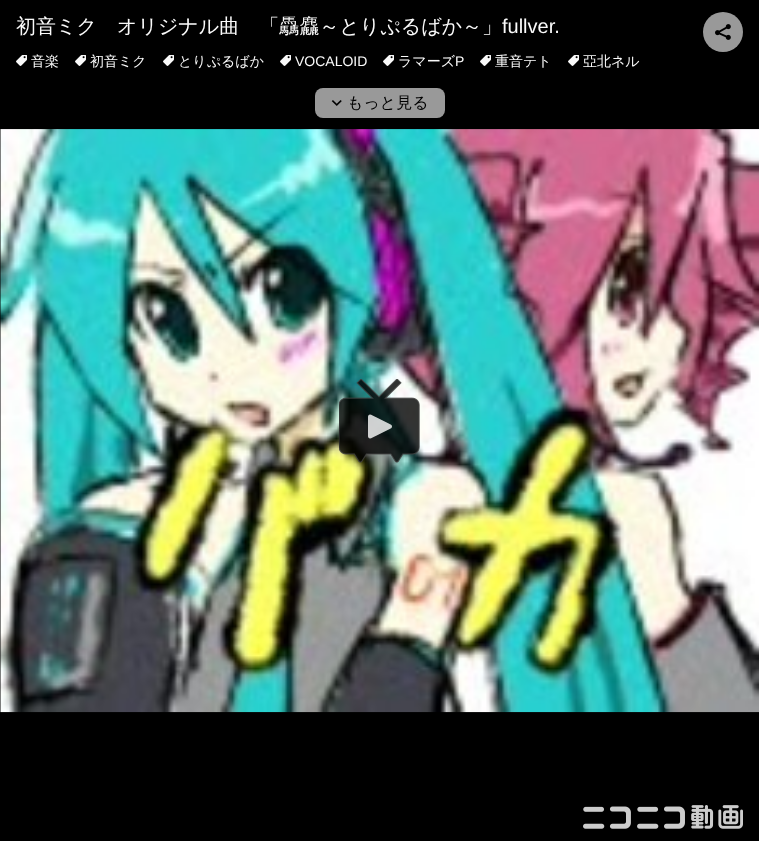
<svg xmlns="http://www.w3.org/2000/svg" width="759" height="841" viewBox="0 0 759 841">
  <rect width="100%" height="100%" fill="rgb(0,0,0)"/>
  <text x="16" y="33" font-family="WenQuanYi Zen Hei" font-size="20" font-weight="500" fill="rgb(250,250,250)">初音ミク　オリジナル曲　「驫麤～とりぷるばか～」</text>
  <text x="502" y="33" font-family="Liberation Sans" font-size="20" fill="rgb(250,250,250)">fullver.</text>
  <image x="16" y="55" width="11" height="11" href="pic1.png"/>
  <text x="31" y="66" font-family="WenQuanYi Zen Hei" font-size="14" font-weight="500" fill="rgb(250,250,250)">音楽</text>
  <image x="75" y="55" width="11" height="11" href="pic1.png"/>
  <text x="90" y="66" font-family="WenQuanYi Zen Hei" font-size="14" font-weight="500" fill="rgb(250,250,250)">初音ミク</text>
  <image x="163" y="55" width="11" height="11" href="pic1.png"/>
  <text x="178" y="66" font-family="WenQuanYi Zen Hei" font-size="14" font-weight="500" fill="rgb(250,250,250)">とりぷるばか</text>
  <image x="280" y="55" width="11" height="11" href="pic1.png"/>
  <text x="295" y="66" font-family="Liberation Sans" font-size="14" fill="rgb(250,250,250)">VOCALOID</text>
  <image x="383" y="55" width="11" height="11" href="pic1.png"/>
  <text x="398" y="66" font-family="WenQuanYi Zen Hei" font-size="14" font-weight="500" fill="rgb(250,250,250)">ラマーズ</text>
  <text x="455" y="66" font-family="Liberation Sans" font-size="14" fill="rgb(250,250,250)">P</text>
  <image x="480" y="55" width="11" height="11" href="pic1.png"/>
  <text x="495" y="66" font-family="WenQuanYi Zen Hei" font-size="14" font-weight="500" fill="rgb(250,250,250)">重音テト</text>
  <image x="568" y="55" width="11" height="11" href="pic1.png"/>
  <text x="583" y="66" font-family="WenQuanYi Zen Hei" font-size="14" font-weight="500" fill="rgb(250,250,250)">亞北ネル</text>
  <circle cx="723" cy="32" r="20" fill="rgb(153,153,153)"/>
  <image x="715" y="24" width="16" height="16" href="pic2.png"/>
  <rect x="315" y="88" width="130" height="30" rx="8" fill="rgb(153,153,153)"/>
  <image x="331" y="100" width="11" height="6" href="pic3.png"/>
  <text x="347" y="108" font-family="WenQuanYi Zen Hei" font-size="16" font-weight="500" fill="rgb(0,0,0)">もっと見る</text>
  <image x="0" y="129" width="759" height="584" href="pic4.png"/>
  <image x="339" y="379" width="81" height="84" href="pic5.png"/>
  <image x="368" y="414" width="24" height="25" href="pic6.png"/>
  <image x="583" y="805" width="160" height="24" href="pic7.png"/>
</svg>
